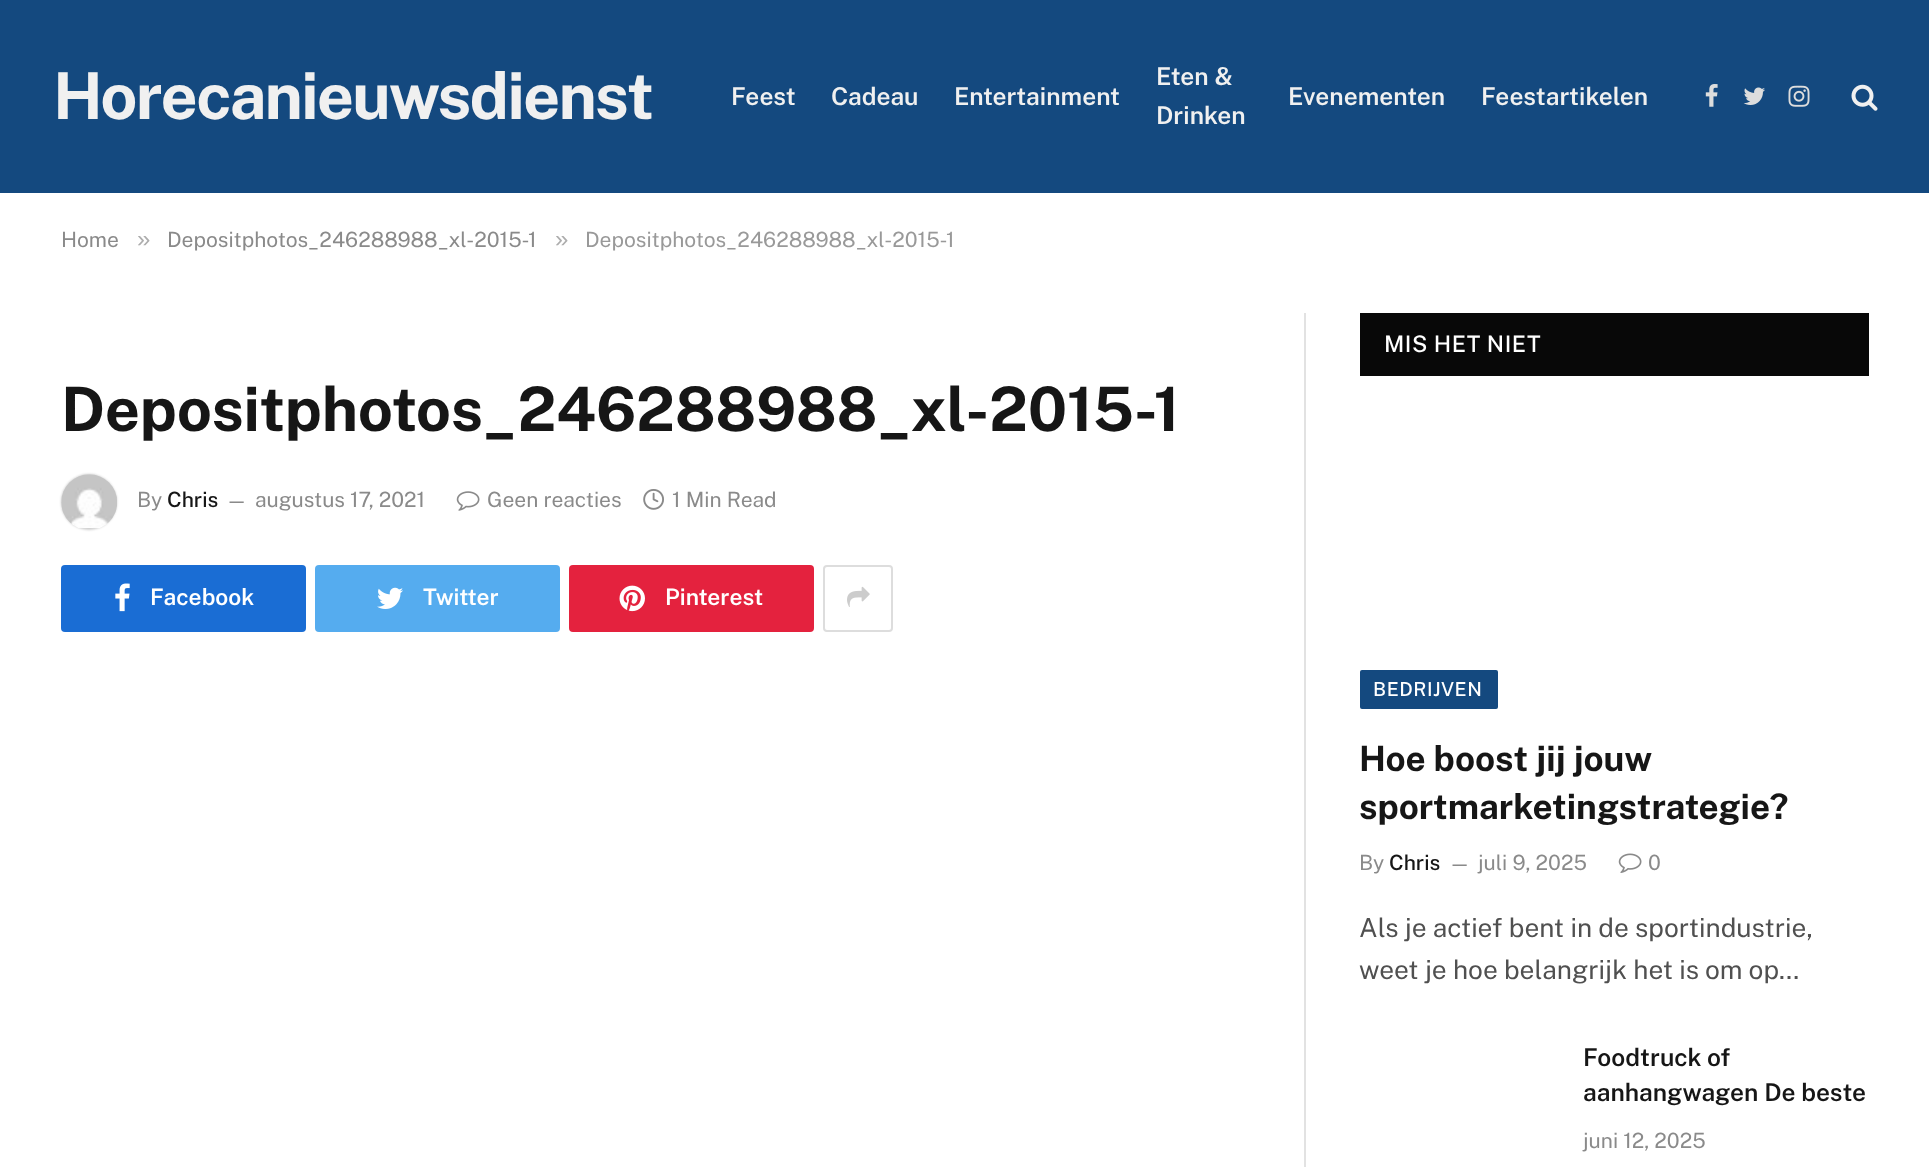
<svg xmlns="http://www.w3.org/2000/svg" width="1929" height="1167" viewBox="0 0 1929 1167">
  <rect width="100%" height="100%" fill="rgb(255,255,255)"/>
  <rect x="0" y="0" width="1929" height="193" fill="rgb(20,73,127)"/>
  <text x="53" y="119" font-family="Public Sans" font-size="64.75" font-weight="bold" letter-spacing="-1.75" fill="rgb(240,240,240)">Horecanieuwsdienst</text>
  <g font-family="Public Sans" font-size="24.5" font-weight="600" fill="rgb(240,240,240)">
    <text x="731" y="105">Feest</text>
    <text x="831" y="105">Cadeau</text>
    <text x="954" y="105">Entertainment</text>
    <text>
      <tspan x="1156" y="85">Eten &amp;</tspan>
      <tspan x="1156" y="124">Drinken</tspan>
    </text>
    <text x="1288" y="105">Evenementen</text>
    <text x="1481" y="105">Feestartikelen</text>
  </g>
  <image x="1705" y="84" width="13" height="23" href="pic1.png"/>
  <image x="1743" y="87" width="22" height="18" href="pic2.png"/>
  <image x="1788" y="85" width="22" height="22" href="pic3.png"/>
  <image x="1851" y="84" width="27" height="27" href="pic4.png"/>
  <text x="61" y="247" font-family="Public Sans" font-size="21" fill="rgb(138,138,138)">Home</text>
  <text x="137" y="247" font-family="Liberation Sans" font-size="24" fill="rgb(173,173,173)">»</text>
  <text x="167" y="247" font-family="Public Sans" font-size="21" fill="rgb(138,138,138)">Depositphotos_246288988_xl-2015-1</text>
  <text x="555" y="247" font-family="Liberation Sans" font-size="24" fill="rgb(173,173,173)">»</text>
  <text x="585" y="247" font-family="Public Sans" font-size="21" fill="rgb(153,153,153)">Depositphotos_246288988_xl-2015-1</text>
  <text x="61" y="431" font-family="Public Sans" font-size="61.25" font-weight="bold" letter-spacing="-0.3" fill="rgb(22,22,22)">Depositphotos_246288988_xl-2015-1</text>
  <rect x="61" y="474" width="56" height="56" rx="28" fill="rgba(0,0,0,0.2)" filter="blur(1px)"/>
  <image x="61" y="474" width="56" height="54" href="pic5.png"/>
  <text x="137" y="507" font-family="Public Sans" font-size="21" fill="rgb(138,138,138)">By</text>
  <text x="167" y="507" font-family="Public Sans" font-size="21" font-weight="500" fill="rgb(22,22,22)">Chris</text>
  <text x="226" y="507" font-family="Public Sans" font-size="19" fill="rgb(138,138,138)">—</text>
  <text x="255" y="507" font-family="Public Sans" font-size="21" fill="rgb(138,138,138)">augustus 17, 2021</text>
  <image x="456" y="491" width="24" height="20" href="pic6.png"/>
  <text x="487" y="507" font-family="Public Sans" font-size="21" fill="rgb(138,138,138)">Geen reacties</text>
  <image x="643" y="489" width="21" height="21" href="pic7.png"/>
  <text x="672" y="507" font-family="Public Sans" font-size="21" fill="rgb(138,138,138)">1 Min Read</text>
  <rect x="61" y="565" width="245" height="67" rx="4" fill="rgb(26,109,212)"/>
  <image x="115" y="583" width="15" height="29" href="pic8.png"/>
  <text x="150" y="605" font-family="Public Sans" font-size="22.75" font-weight="600" fill="rgb(255,255,255)">Facebook</text>
  <rect x="315" y="565" width="245" height="67" rx="4" fill="rgb(85,172,239)"/>
  <image x="377" y="587" width="26" height="22" href="pic9.png"/>
  <text x="423" y="605" font-family="Public Sans" font-size="22.75" font-weight="600" fill="rgb(255,255,255)">Twitter</text>
  <rect x="569" y="565" width="245" height="67" rx="4" fill="rgb(228,34,62)"/>
  <image x="619" y="585" width="26" height="27" href="pic10.png"/>
  <text x="665" y="605" font-family="Public Sans" font-size="22.75" font-weight="600" fill="rgb(255,255,255)">Pinterest</text>
  <rect x="824" y="566" width="68" height="65" rx="3" fill="none" stroke="rgb(221,221,221)" stroke-width="2"/>
  <image x="847" y="586" width="23" height="21" href="pic11.png"/>
  <rect x="1304" y="313" width="2" height="854" fill="rgb(226,226,226)"/>
  <rect x="1360" y="313" width="509" height="63" fill="rgb(8,8,8)"/>
  <text x="1384" y="352" font-family="Public Sans" font-size="22.75" font-weight="500" letter-spacing="0.5" fill="rgb(255,255,255)">MIS HET NIET</text>
  <rect x="1360" y="670" width="138" height="39" rx="2" fill="rgb(20,73,127)"/>
  <text x="1373" y="696" font-family="Public Sans" font-size="19.25" font-weight="500" letter-spacing="0.5" fill="rgb(255,255,255)">BEDRIJVEN</text>
  <g font-family="Public Sans" font-size="35" font-weight="bold" fill="rgb(22,22,22)">
    <text>
      <tspan x="1359" y="771">Hoe boost jij jouw</tspan>
      <tspan x="1359" y="819">sportmarketingstrategie?</tspan>
    </text>
  </g>
  <text x="1359" y="870" font-family="Public Sans" font-size="21" fill="rgb(138,138,138)">By</text>
  <text x="1389" y="870" font-family="Public Sans" font-size="21" font-weight="500" fill="rgb(22,22,22)">Chris</text>
  <text x="1449" y="870" font-family="Public Sans" font-size="19" fill="rgb(138,138,138)">—</text>
  <text x="1478" y="870" font-family="Public Sans" font-size="21" fill="rgb(138,138,138)">juli 9, 2025</text>
  <image x="1618" y="853" width="24" height="20" href="pic12.png"/>
  <text x="1648" y="870" font-family="Public Sans" font-size="21" fill="rgb(138,138,138)">0</text>
  <g font-family="Public Sans" font-size="26.25" fill="rgb(80,80,80)">
    <text>
      <tspan x="1359" y="937">Als je actief bent in de sportindustrie,</tspan>
      <tspan x="1359" y="979">weet je hoe belangrijk het is om op…</tspan>
    </text>
  </g>
  <g font-family="Public Sans" font-size="24.5" font-weight="600" fill="rgb(22,22,22)">
    <text>
      <tspan x="1583" y="1066">Foodtruck of</tspan>
      <tspan x="1583" y="1101">aanhangwagen De beste</tspan>
    </text>
  </g>
  <text x="1583" y="1148" font-family="Public Sans" font-size="21" fill="rgb(138,138,138)">juni 12, 2025</text>
</svg>
